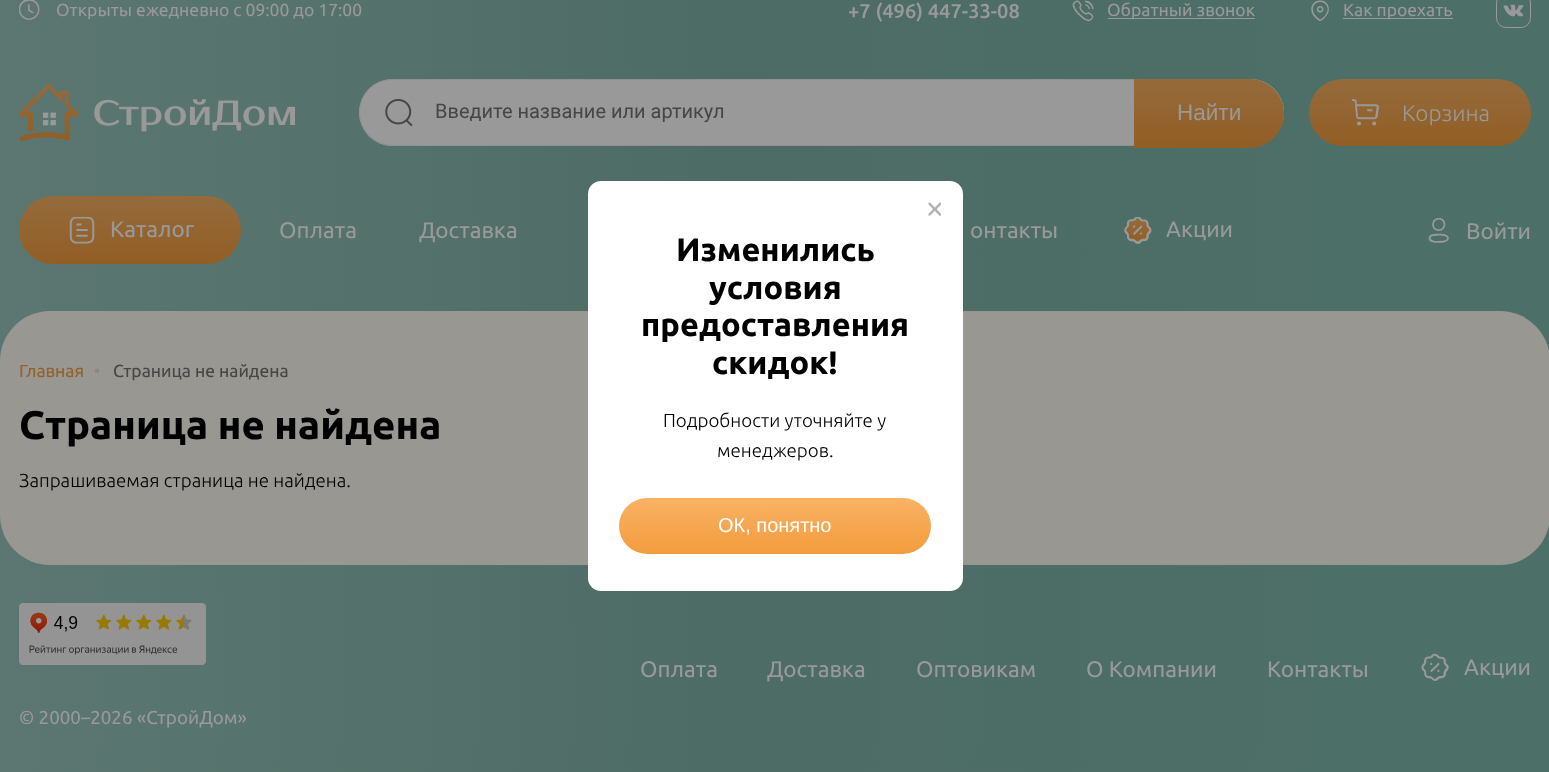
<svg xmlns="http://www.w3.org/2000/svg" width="1549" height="772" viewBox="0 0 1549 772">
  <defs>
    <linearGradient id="g1" gradientUnits="userSpaceOnUse" x1="-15" y1="364" x2="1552" y2="356"><stop offset="0" stop-color="rgb(92,119,113)"/><stop offset="0.48" stop-color="rgb(77,108,101)"/><stop offset="1" stop-color="rgb(76,112,104)"/></linearGradient>
    <linearGradient id="g2" gradientUnits="userSpaceOnUse" x1="-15" y1="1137" x2="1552" y2="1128"><stop offset="0" stop-color="rgb(92,119,113)"/><stop offset="0.48" stop-color="rgb(77,108,101)"/><stop offset="1" stop-color="rgb(76,112,104)"/></linearGradient>
    <linearGradient id="g3" gradientUnits="userSpaceOnUse" x1="1209" y1="78" x2="1209" y2="147"><stop offset="0" stop-color="rgb(149,107,60)"/><stop offset="1" stop-color="rgb(146,94,37)"/></linearGradient>
    <linearGradient id="g4" gradientUnits="userSpaceOnUse" x1="1420" y1="79" x2="1420" y2="146"><stop offset="0" stop-color="rgb(149,107,60)"/><stop offset="1" stop-color="rgb(146,94,37)"/></linearGradient>
    <linearGradient id="g5" gradientUnits="userSpaceOnUse" x1="130" y1="196" x2="130" y2="264"><stop offset="0" stop-color="rgb(149,107,60)"/><stop offset="1" stop-color="rgb(146,94,37)"/></linearGradient>
    <linearGradient id="g6" gradientUnits="userSpaceOnUse" x1="775" y1="498" x2="775" y2="554"><stop offset="0" stop-color="rgb(249,178,100)"/><stop offset="1" stop-color="rgb(243,156,61)"/></linearGradient>
  </defs>
  <rect width="100%" height="100%" fill="rgb(255,255,255)"/>
  <rect x="0" y="0" width="1549" height="746" fill="url(#g1)"/>
  <rect x="0" y="746" width="1549" height="26" fill="url(#g2)"/>
  <image x="19" y="0" width="21" height="20" href="pic1.png"/>
  <text x="56" y="16" font-family="Ubuntu" font-size="17.5" fill="rgb(153,153,153)">Открыты ежедневно с 09:00 до 17:00</text>
  <text x="848" y="18" font-family="Ubuntu" font-size="20" font-weight="500" fill="rgb(153,153,153)">+7 (496) 447-33-08</text>
  <image x="1072" y="0" width="22" height="22" href="pic2.png"/>
  <rect x="1108" y="18" width="147" height="1" fill="rgb(153,153,153)"/>
  <text x="1107" y="16" font-family="Ubuntu" font-size="17.5" fill="rgb(153,153,153)">Обратный звонок</text>
  <image x="1311" y="0" width="18" height="21" href="pic3.png"/>
  <rect x="1343" y="18" width="110" height="1" fill="rgb(153,153,153)"/>
  <text x="1343" y="16" font-family="Ubuntu" font-size="17.5" fill="rgb(153,153,153)">Как проехать</text>
  <image x="1503" y="4" width="21" height="13" href="pic4.png"/>
  <rect x="1496.5" y="-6.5" width="34" height="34" rx="9.5" fill="none" stroke="rgb(153,153,153)"/>
  <image x="19" y="84" width="276" height="57" href="pic5.png"/>
  <rect x="359" y="79" width="925" height="67" rx="33.5" fill="rgb(153,153,153)"/>
  <image x="385" y="99" width="28" height="27" href="pic6.png"/>
  <rect x="359.5" y="79.5" width="924" height="66" rx="33" fill="none" stroke="rgb(143,144,146)"/>
  <text x="435" y="118" font-family="Roboto" font-size="20" fill="rgb(70,70,71)">Введите название или артикул</text>
  <path d="M1134 79H1249.5C1268.5 79 1284 94.5 1284 113.5C1284 132.5 1268.5 148 1249.5 148H1134Z" fill="url(#g3)"/>
  <text x="1177" y="120" font-family="Liberation Sans" font-size="22.5" fill="rgb(153,153,153)">Найти</text>
  <rect x="1309" y="79" width="222" height="67" rx="33.5" fill="url(#g4)"/>
  <image x="1351" y="99" width="28" height="27" href="pic7.png"/>
  <text x="1402" y="121" font-family="Ubuntu" font-size="22.5" font-weight="300" fill="rgb(153,153,153)">Корзина</text>
  <rect x="19" y="196" width="222" height="68" rx="34" fill="url(#g5)"/>
  <image x="69" y="217" width="26" height="27" href="pic8.png"/>
  <g font-family="Ubuntu" font-size="22.5" fill="rgb(153,153,153)">
    <text x="110" y="237">Каталог</text>
    <text x="279" y="238">Оплата</text>
    <text x="419" y="238">Доставка</text>
    <text x="970" y="238">онтакты</text>
  </g>
  <image x="1124" y="217" width="28" height="27" href="pic9.png"/>
  <text x="1166" y="237" font-family="Ubuntu" font-size="22.5" fill="rgb(153,153,153)">Акции</text>
  <image x="1428" y="218" width="21" height="25" href="pic10.png"/>
  <text x="1466" y="239" font-family="Ubuntu" font-size="22.5" fill="rgb(153,153,153)">Войти</text>
  <rect x="0" y="311" width="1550" height="254" rx="50" fill="rgb(153,151,145)"/>
  <text x="19" y="377" font-family="Ubuntu" font-size="17.5" fill="rgb(147,97,41)">Главная</text>
  <text x="94" y="377" font-family="Ubuntu" font-size="17.5" fill="rgb(136,136,136)">•</text>
  <text x="113" y="377" font-family="Ubuntu" font-size="17.5" fill="rgb(70,70,71)">Страница не найдена</text>
  <text x="19" y="439" font-family="Ubuntu" font-size="40" font-weight="bold" fill="rgb(0,0,0)">Страница не найдена</text>
  <text x="19" y="487" font-family="Ubuntu" font-size="18.75" font-weight="300" fill="rgb(0,0,0)">Запрашиваемая страница не найдена.</text>
  <g font-family="Ubuntu" font-size="22.5" fill="rgb(153,153,153)">
    <text x="640" y="677">Оплата</text>
    <text x="767" y="677">Доставка</text>
    <text x="916" y="677">Оптовикам</text>
    <text x="1086" y="677">О Компании</text>
    <text x="1267" y="677">Контакты</text>
  </g>
  <image x="1421" y="653" width="28" height="28" href="pic11.png"/>
  <text x="1464" y="675" font-family="Ubuntu" font-size="22.5" fill="rgb(153,153,153)">Акции</text>
  <image x="19" y="603" width="187" height="62" href="pic12.png"/>
  <text x="19" y="724" font-family="Ubuntu" font-size="18.75" fill="rgb(153,153,153)">© 2000–2026 «СтройДом»</text>
  <rect x="588" y="181" width="375" height="410" rx="13" fill="rgb(255,255,255)"/>
  <image x="928" y="202" width="13" height="15" href="pic13.png"/>
  <g font-family="Ubuntu" font-size="32.5" font-weight="bold" fill="rgb(0,0,0)">
    <text x="676" y="261">Изменились</text>
    <text x="709" y="299">условия</text>
    <text x="641" y="336">предоставления</text>
    <text x="712" y="374">скидок!</text>
  </g>
  <g font-family="Ubuntu" font-size="18.75" font-weight="300" fill="rgb(0,0,0)">
    <text x="663" y="427">Подробности уточняйте у</text>
    <text x="717" y="457">менеджеров.</text>
  </g>
  <rect x="619" y="498" width="312" height="56" rx="28" fill="url(#g6)"/>
  <text x="718" y="532" font-family="Liberation Sans" font-size="20" fill="rgb(255,255,255)">ОК, понятно</text>
</svg>
